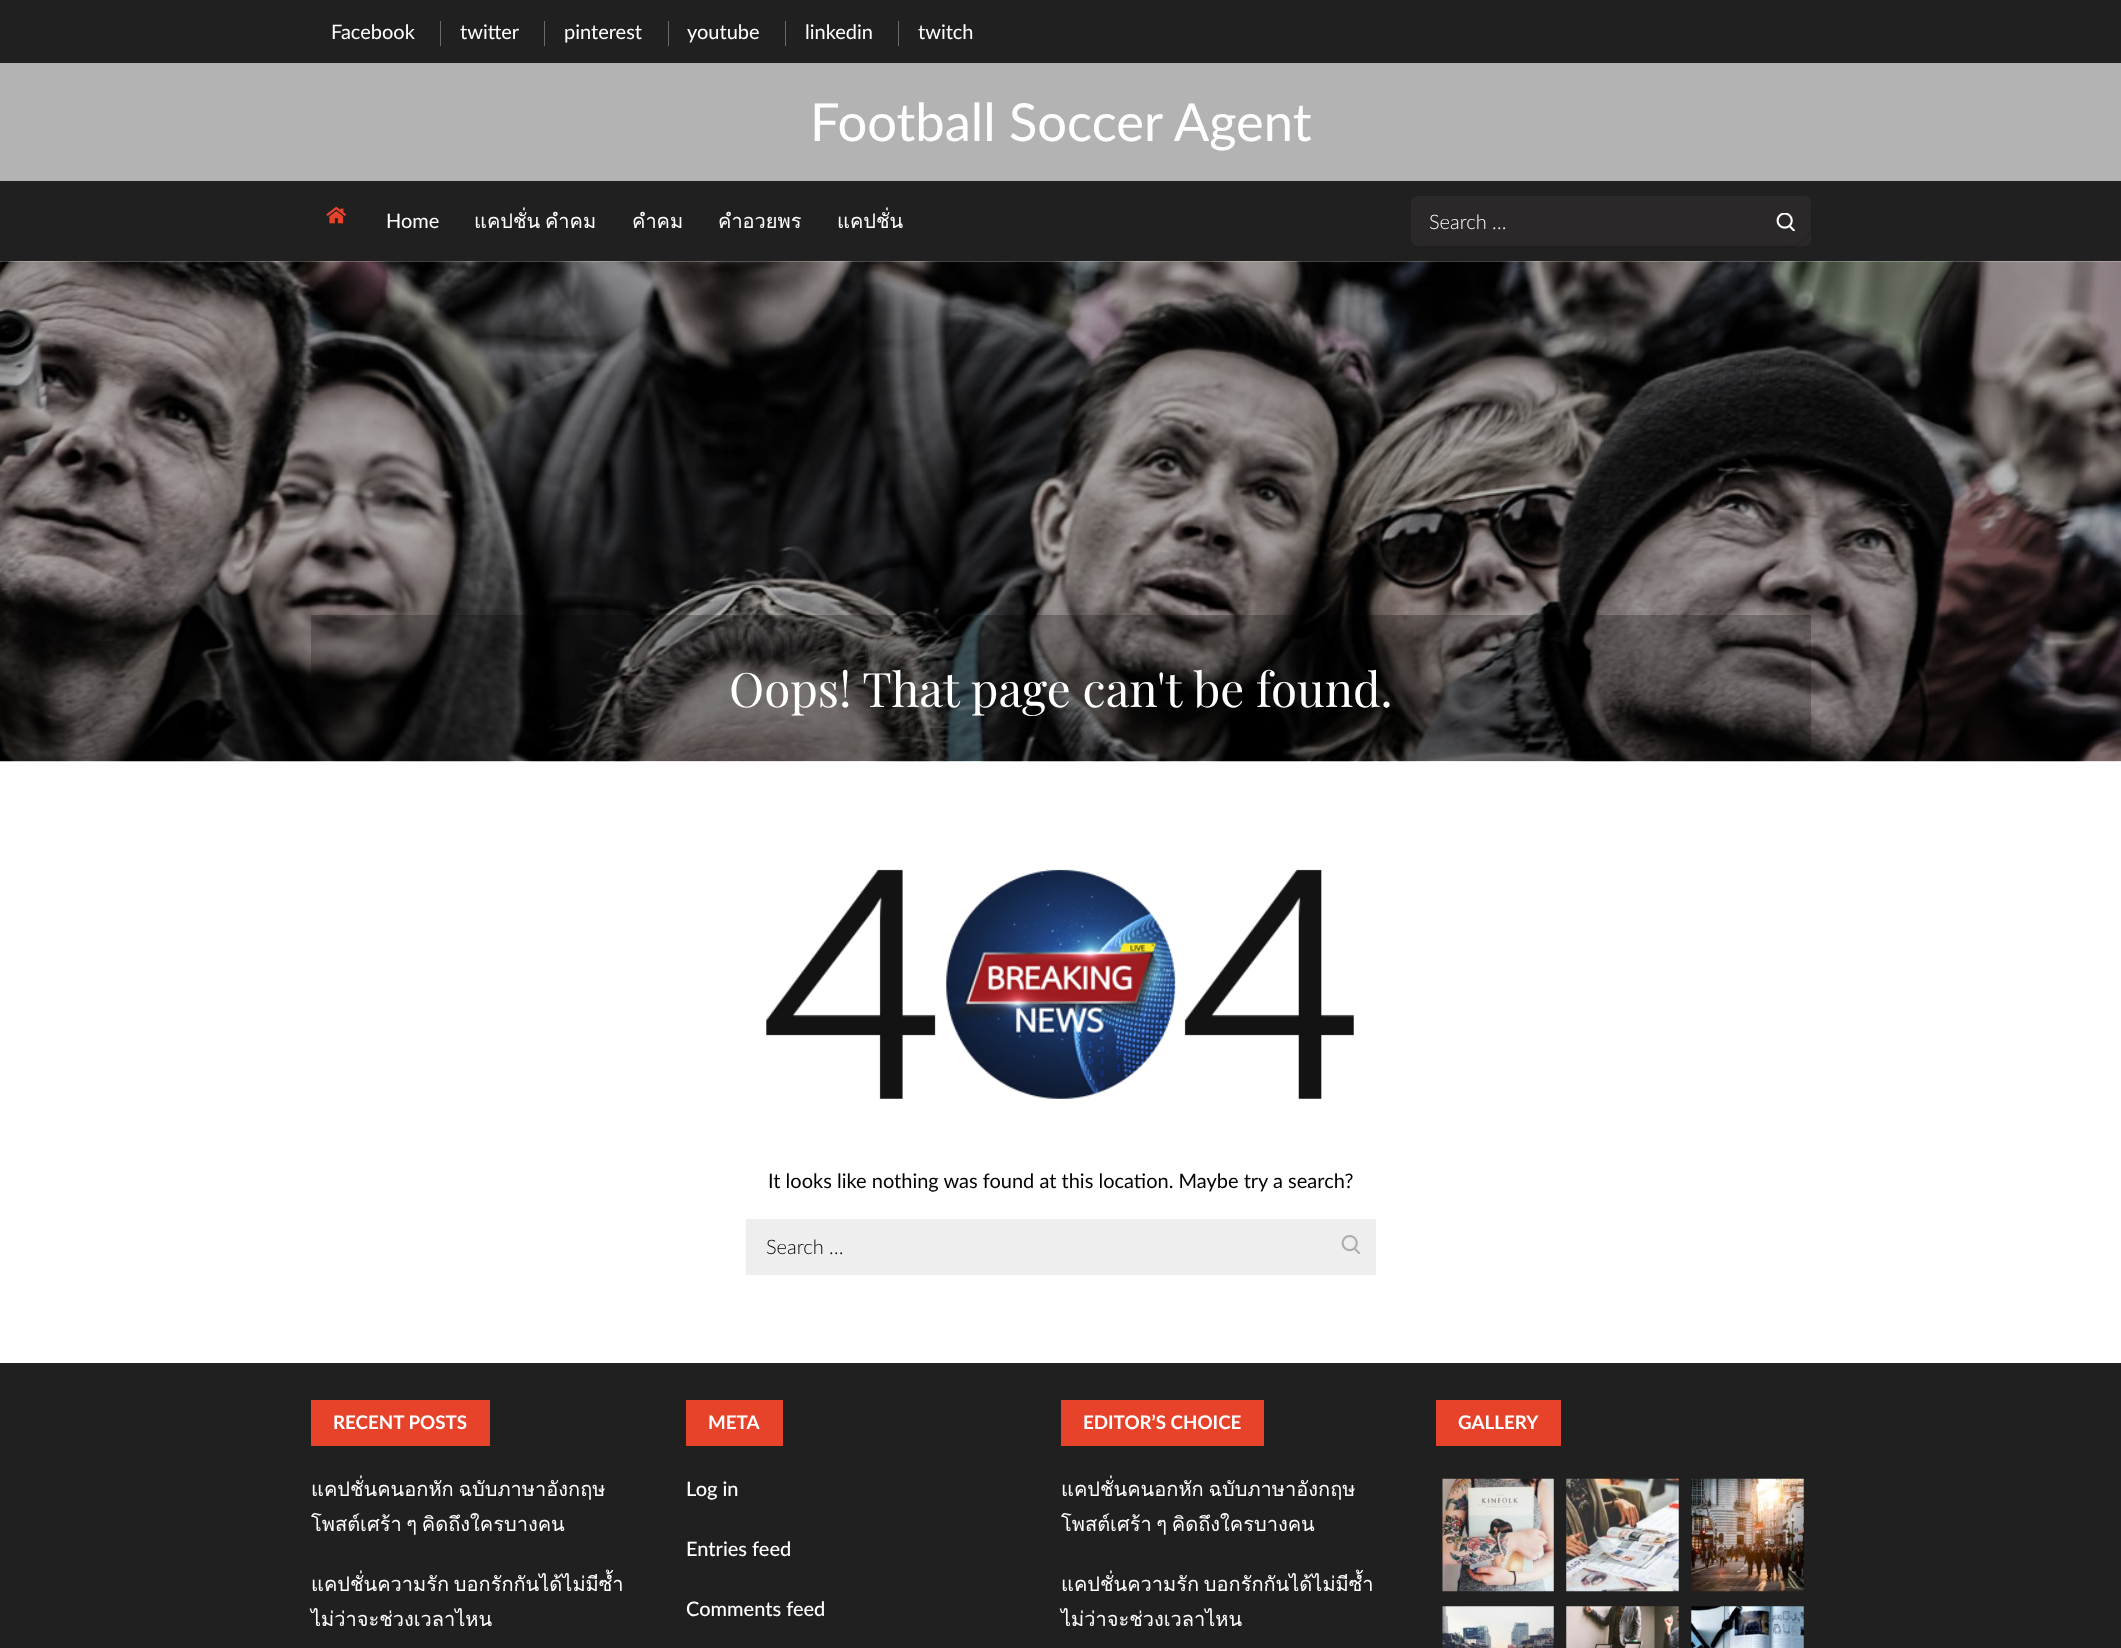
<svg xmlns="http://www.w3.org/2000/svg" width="2121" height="1648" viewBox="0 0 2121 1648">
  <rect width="100%" height="100%" fill="rgb(255,255,255)"/>
  <rect x="0" y="0" width="2121" height="63" fill="rgb(32,32,32)"/>
  <text x="331" y="39" font-family="Lato" font-size="20" fill="rgb(255,255,255)">Facebook</text>
  <rect x="440" y="21" width="1" height="25" fill="rgb(106,106,106)"/>
  <text x="460" y="39" font-family="Lato" font-size="20" fill="rgb(255,255,255)">twitter</text>
  <rect x="544" y="21" width="1" height="25" fill="rgb(106,106,106)"/>
  <text x="564" y="39" font-family="Lato" font-size="20" fill="rgb(255,255,255)">pinterest</text>
  <rect x="668" y="21" width="1" height="25" fill="rgb(106,106,106)"/>
  <text x="687" y="39" font-family="Lato" font-size="20" fill="rgb(255,255,255)">youtube</text>
  <rect x="785" y="21" width="1" height="25" fill="rgb(106,106,106)"/>
  <text x="805" y="39" font-family="Lato" font-size="20" fill="rgb(255,255,255)">linkedin</text>
  <rect x="898" y="21" width="1" height="25" fill="rgb(106,106,106)"/>
  <text x="918" y="39" font-family="Lato" font-size="20" fill="rgb(255,255,255)">twitch</text>
  <rect x="0" y="63" width="2121" height="118" fill="rgb(179,179,179)"/>
  <text x="810" y="141" font-family="Lato" font-size="52.5" fill="rgb(255,255,255)">Football Soccer Agent</text>
  <rect x="0" y="181" width="2121" height="80" fill="rgb(32,32,32)"/>
  <image x="326" y="206" width="21" height="18" href="pic1.png"/>
  <text x="386" y="228" font-family="Lato" font-size="20" fill="rgb(255,255,255)">Home</text>
  <g font-family="Loma" font-size="20" fill="rgb(255,255,255)">
    <text x="474" y="228" word-spacing="-2">แคปชั่น คำคม</text>
    <text x="632" y="228">คำคม</text>
    <text x="718" y="228">คำอวยพร</text>
    <text x="837" y="228">แคปชั่น</text>
  </g>
  <path d="M1419 240C1424 245 1431 248 1438 248H1788C1802 248 1813 237 1813 223C1813 216 1810 209 1805 204C1809 209 1811 215 1811 221C1811 235 1800 246 1786 246H1436C1430 246 1424 244 1419 240Z" fill="rgb(29,29,29)"/>
  <rect x="1411" y="196" width="400" height="50" rx="6" fill="rgba(67,62,62,0.28)"/>
  <text x="1429" y="229" font-family="Lato" font-size="20" font-weight="300" fill="rgb(255,255,255)">Search …</text>
  <image x="1776" y="213" width="19" height="18" href="pic2.png"/>
  <image x="0" y="261" width="2121" height="501" href="pic3.png"/>
  <rect x="311" y="615" width="1500" height="146" fill="rgba(0,0,0,0.25)"/>
  <text x="729" y="707" font-family="Playfair Display" font-size="47.5" fill="rgb(255,255,255)">Oops! That page can't be found.</text>
  <image x="766" y="869" width="588" height="230" href="pic4.png"/>
  <text x="768" y="1188" font-family="Lato" font-size="20" fill="rgb(0,0,0)">It looks like nothing was found at this location. Maybe try a search?</text>
  <rect x="746" y="1219" width="630" height="56" fill="rgb(238,238,238)"/>
  <text x="766" y="1254" font-family="Lato" font-size="20" font-weight="300" fill="rgb(0,0,0)">Search …</text>
  <image x="1341" y="1235" width="19" height="19" href="pic5.png"/>
  <rect x="0" y="1363" width="2121" height="285" fill="rgb(32,32,32)"/>
  <rect x="311" y="1400" width="179" height="46" fill="rgb(230,67,42)"/>
  <text x="333" y="1429" font-family="Lato" font-size="18.75" font-weight="bold" fill="rgb(255,255,255)">RECENT POSTS</text>
  <g font-family="Loma" font-size="20" fill="rgb(255,255,255)">
    <text>
      <tspan x="311" y="1496" word-spacing="-2">แคปชั่นคนอกหัก ฉบับภาษาอังกฤษ</tspan>
      <tspan x="311" y="1531" word-spacing="-2">โพสต์เศร้า ๆ คิดถึงใครบางคน</tspan>
    </text>
    <text>
      <tspan x="311" y="1591" word-spacing="-2">แคปชั่นความรัก บอกรักกันได้ไม่มีซ้ำ</tspan>
      <tspan x="311" y="1626">ไม่ว่าจะช่วงเวลาไหน</tspan>
    </text>
  </g>
  <rect x="686" y="1400" width="97" height="46" fill="rgb(230,67,42)"/>
  <text x="708" y="1429" font-family="Lato" font-size="18.75" font-weight="bold" fill="rgb(255,255,255)">META</text>
  <g font-family="Lato" font-size="20" font-weight="500" fill="rgb(255,255,255)">
    <text x="686" y="1496">Log in</text>
    <text x="686" y="1556">Entries feed</text>
    <text x="686" y="1616">Comments feed</text>
  </g>
  <rect x="1061" y="1400" width="203" height="46" fill="rgb(230,67,42)"/>
  <text x="1083" y="1429" font-family="Lato" font-size="18.75" font-weight="bold" fill="rgb(255,255,255)">EDITOR’S CHOICE</text>
  <g font-family="Loma" font-size="20" fill="rgb(255,255,255)">
    <text>
      <tspan x="1061" y="1496" word-spacing="-2">แคปชั่นคนอกหัก ฉบับภาษาอังกฤษ</tspan>
      <tspan x="1061" y="1531" word-spacing="-2">โพสต์เศร้า ๆ คิดถึงใครบางคน</tspan>
    </text>
    <text>
      <tspan x="1061" y="1591" word-spacing="-2">แคปชั่นความรัก บอกรักกันได้ไม่มีซ้ำ</tspan>
      <tspan x="1061" y="1626">ไม่ว่าจะช่วงเวลาไหน</tspan>
    </text>
  </g>
  <rect x="1436" y="1400" width="125" height="46" fill="rgb(230,67,42)"/>
  <text x="1458" y="1429" font-family="Lato" font-size="18.75" font-weight="bold" fill="rgb(255,255,255)">GALLERY</text>
  <image x="1442" y="1478" width="112" height="114" href="pic6.png"/>
  <image x="1566" y="1478" width="113" height="114" href="pic7.png"/>
  <image x="1691" y="1478" width="113" height="114" href="pic8.png"/>
  <image x="1442" y="1606" width="112" height="42" href="pic9.png"/>
  <image x="1566" y="1606" width="113" height="42" href="pic10.png"/>
  <image x="1691" y="1606" width="113" height="42" href="pic11.png"/>
</svg>
